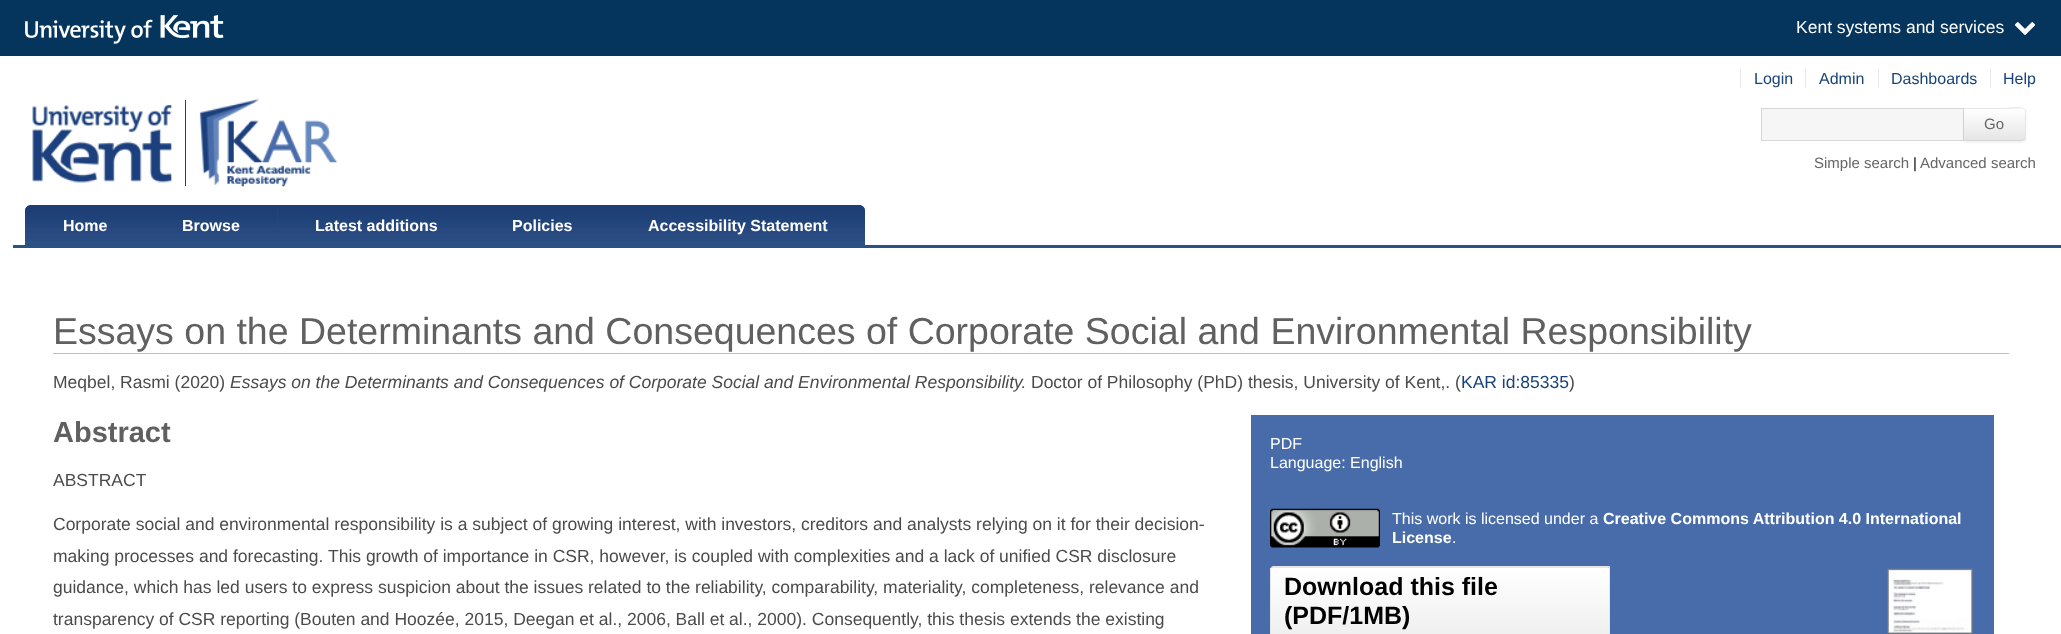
<svg xmlns="http://www.w3.org/2000/svg" width="2061" height="634" viewBox="0 0 2061 634">
  <defs>
    <clipPath id="clip1"><path d="M1964 108H2022C2024 108 2026 110 2026 112V137C2026 139 2024 141 2022 141H1964Z"/></clipPath>
    <linearGradient id="g1" gradientUnits="userSpaceOnUse" x1="1994" y1="109" x2="1994" y2="140"><stop offset="0" stop-color="rgb(255,255,255)"/><stop offset="1" stop-color="rgb(230,230,230)"/></linearGradient>
    <linearGradient id="g2" gradientUnits="userSpaceOnUse" x1="1440" y1="568" x2="1440" y2="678"><stop offset="0" stop-color="rgb(255,255,255)"/><stop offset="1" stop-color="rgb(230,230,230)"/></linearGradient>
  </defs>
  <rect width="100%" height="100%" fill="rgb(255,255,255)"/>
  <rect x="0" y="0" width="2061" height="56" fill="rgb(5,52,92)"/>
  <image x="25" y="15" width="199" height="29" href="pic1.png"/>
  <text x="1796" y="33" font-family="Liberation Sans" font-size="17.5" fill="rgb(255,255,255)">Kent systems and services</text>
  <image x="2014" y="22" width="22" height="13" href="pic2.png"/>
  <image x="32" y="105" width="140" height="78" href="pic3.png"/>
  <rect x="185" y="100" width="1" height="86" fill="rgb(27,64,125)"/>
  <image x="199" y="98" width="139" height="89" href="pic4.png"/>
  <text x="1754" y="84" font-family="Liberation Sans" font-size="16" fill="rgb(24,66,121)">Login</text>
  <rect x="1740" y="69" width="1" height="19" fill="rgb(232,232,232)"/>
  <text x="1819" y="84" font-family="Liberation Sans" font-size="16" fill="rgb(24,66,121)">Admin</text>
  <rect x="1805" y="69" width="1" height="19" fill="rgb(232,232,232)"/>
  <text x="1891" y="84" font-family="Liberation Sans" font-size="16" fill="rgb(24,66,121)">Dashboards</text>
  <rect x="1878" y="69" width="1" height="19" fill="rgb(232,232,232)"/>
  <text x="2003" y="84" font-family="Liberation Sans" font-size="16" fill="rgb(24,66,121)">Help</text>
  <rect x="1990" y="69" width="1" height="19" fill="rgb(232,232,232)"/>
  <rect x="1761.5" y="108.5" width="202" height="32" fill="rgb(246,246,246)" stroke="rgb(214,214,214)"/>
  <rect x="1964" y="109" width="62" height="34" rx="4" fill="rgba(0,0,0,0.05)" filter="blur(1px)"/>
  <path d="M1964 108H2022C2024 108 2026 110 2026 112V137C2026 139 2024 141 2022 141H1964Z" fill="rgb(249,249,249)"/>
  <g clip-path="url(#clip1)">
    <rect x="1964" y="109" width="62" height="31" fill="url(#g1)"/>
  </g>
  <path d="M1964 108V109H2003L2022 108L2024 109H2025C2023 106 2007 108 2003 108Z" fill="rgb(230,230,230)"/>
  <path d="M2024 139C2025.5 137.5 2025 133 2025 124C2025 115.5 2025.5 111 2024.5 109.5L2025 108.5C2026.5 110.5 2026 115 2026 124C2026 133.5 2026.5 138 2025 140Z" fill="rgb(230,230,230)"/>
  <path d="M2022 141H1964V140H2022L2024 139L2025 140Z" fill="rgb(214,214,214)"/>
  <g font-family="Liberation Sans" font-size="15" fill="rgb(102,102,102)">
    <text x="1984" y="129">Go</text>
    <text x="1814" y="168">Simple search</text>
  </g>
  <text x="1913" y="168" font-family="Liberation Sans" font-size="15" fill="rgb(0,0,0)">|</text>
  <text x="1920" y="168" font-family="Liberation Sans" font-size="15" fill="rgb(102,102,102)">Advanced search</text>
  <rect x="13" y="245" width="2048" height="3" fill="rgb(44,82,131)"/>
  <path d="M31 205H145V245H25V211C25 207.5 27.5 205 31 205Z" fill="rgb(44,82,131)"/>
  <image x="25" y="205" width="120" height="36" href="pic5.png"/>
  <text x="63" y="231" font-family="Liberation Sans" font-size="16" font-weight="bold" fill="rgb(255,255,255)">Home</text>
  <rect x="145" y="205" width="133" height="40" fill="rgb(44,82,131)"/>
  <image x="145" y="205" width="133" height="36" href="pic6.png"/>
  <text x="182" y="231" font-family="Liberation Sans" font-size="16" font-weight="bold" fill="rgb(255,255,255)">Browse</text>
  <rect x="278" y="241" width="332" height="4" fill="rgb(44,82,131)"/>
  <image x="277" y="205" width="198" height="36" href="pic7.png"/>
  <text x="315" y="231" font-family="Liberation Sans" font-size="16" font-weight="bold" fill="rgb(255,255,255)">Latest additions</text>
  <image x="475" y="205" width="135" height="36" href="pic8.png"/>
  <text x="512" y="231" font-family="Liberation Sans" font-size="16" font-weight="bold" fill="rgb(255,255,255)">Policies</text>
  <path d="M610 205H859C862.5 205 865 207.5 865 211V245H610Z" fill="rgb(44,82,131)"/>
  <image x="610" y="205" width="255" height="36" href="pic9.png"/>
  <text x="648" y="231" font-family="Liberation Sans" font-size="16" font-weight="bold" fill="rgb(255,255,255)">Accessibility Statement</text>
  <rect x="53" y="353" width="1956" height="1" fill="rgb(191,191,191)"/>
  <text x="53" y="344" font-family="Liberation Sans" font-size="37.5" fill="rgb(96,96,96)">Essays on the Determinants and Consequences of Corporate Social and Environmental Responsibility</text>
  <text x="53" y="388" font-family="Liberation Sans" font-size="17.5" fill="rgb(75,75,75)">Meqbel, Rasmi (2020)</text>
  <text x="230" y="388" font-family="Liberation Sans" font-size="17.5" font-style="italic" fill="rgb(75,75,75)">Essays on the Determinants and Consequences of Corporate Social and Environmental Responsibility.</text>
  <text x="1031" y="388" font-family="Liberation Sans" font-size="17.5" fill="rgb(75,75,75)">Doctor of Philosophy (PhD) thesis, University of Kent,. (</text>
  <text x="1461" y="388" font-family="Liberation Sans" font-size="17.5" fill="rgb(24,66,121)">KAR id:85335</text>
  <text x="1569" y="388" font-family="Liberation Sans" font-size="17.5" fill="rgb(75,75,75)">)</text>
  <text x="53" y="442" font-family="Liberation Sans" font-size="29" font-weight="bold" fill="rgb(96,96,96)">Abstract</text>
  <g font-family="Liberation Sans" font-size="17.5" fill="rgb(75,75,75)">
    <text x="53" y="486">ABSTRACT</text>
    <text>
      <tspan x="53" y="530">Corporate social and environmental responsibility is a subject of growing interest, with investors, creditors and analysts relying on it for their decision-</tspan>
      <tspan x="53" y="562">making processes and forecasting. This growth of importance in CSR, however, is coupled with complexities and a lack of unified CSR disclosure</tspan>
      <tspan x="53" y="593">guidance, which has led users to express suspicion about the issues related to the reliability, comparability, materiality, completeness, relevance and</tspan>
      <tspan x="53" y="625">transparency of CSR reporting (Bouten and Hoozée, 2015, Deegan et al., 2006, Ball et al., 2000). Consequently, this thesis extends the existing</tspan>
    </text>
  </g>
  <rect x="1251" y="415" width="743" height="219" fill="rgb(72,108,169)"/>
  <g font-family="Liberation Sans" font-size="16" fill="rgb(255,255,255)">
    <text>
      <tspan x="1270" y="449">PDF</tspan>
      <tspan x="1270" y="468">Language: English</tspan>
    </text>
  </g>
  <image x="1270" y="508" width="110" height="40" href="pic10.png"/>
  <text x="1392" y="524" font-family="Liberation Sans" font-size="16" fill="rgb(255,255,255)">This work is licensed under a</text>
  <g font-family="Liberation Sans" font-size="16" font-weight="bold" fill="rgb(255,255,255)">
    <text x="1603" y="524">Creative Commons Attribution 4.0 International</text>
    <text x="1392" y="543">License</text>
  </g>
  <text x="1452" y="543" font-family="Liberation Sans" font-size="16" fill="rgb(255,255,255)">.</text>
  <rect x="1270" y="568" width="339" height="66" fill="url(#g2)"/>
  <path d="M1274 568H1272L1271 567L1273 566H1610L1608 568Z" fill="rgb(230,230,230)"/>
  <path d="M1610 566L1608 568H1609V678L1610 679Z" fill="rgb(230,230,230)"/>
  <path d="M1270 570V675L1271 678L1272 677L1271 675V570C1271 569 1271 569 1272 568L1271 567Z" fill="rgb(230,230,230)"/>
  <g font-family="Liberation Sans" font-size="25" font-weight="bold" fill="rgb(0,0,0)">
    <text>
      <tspan x="1284" y="595">Download this file</tspan>
      <tspan x="1284" y="624">(PDF/1MB)</tspan>
    </text>
  </g>
  <image x="1887" y="568" width="86" height="66" href="pic11.png"/>
</svg>
